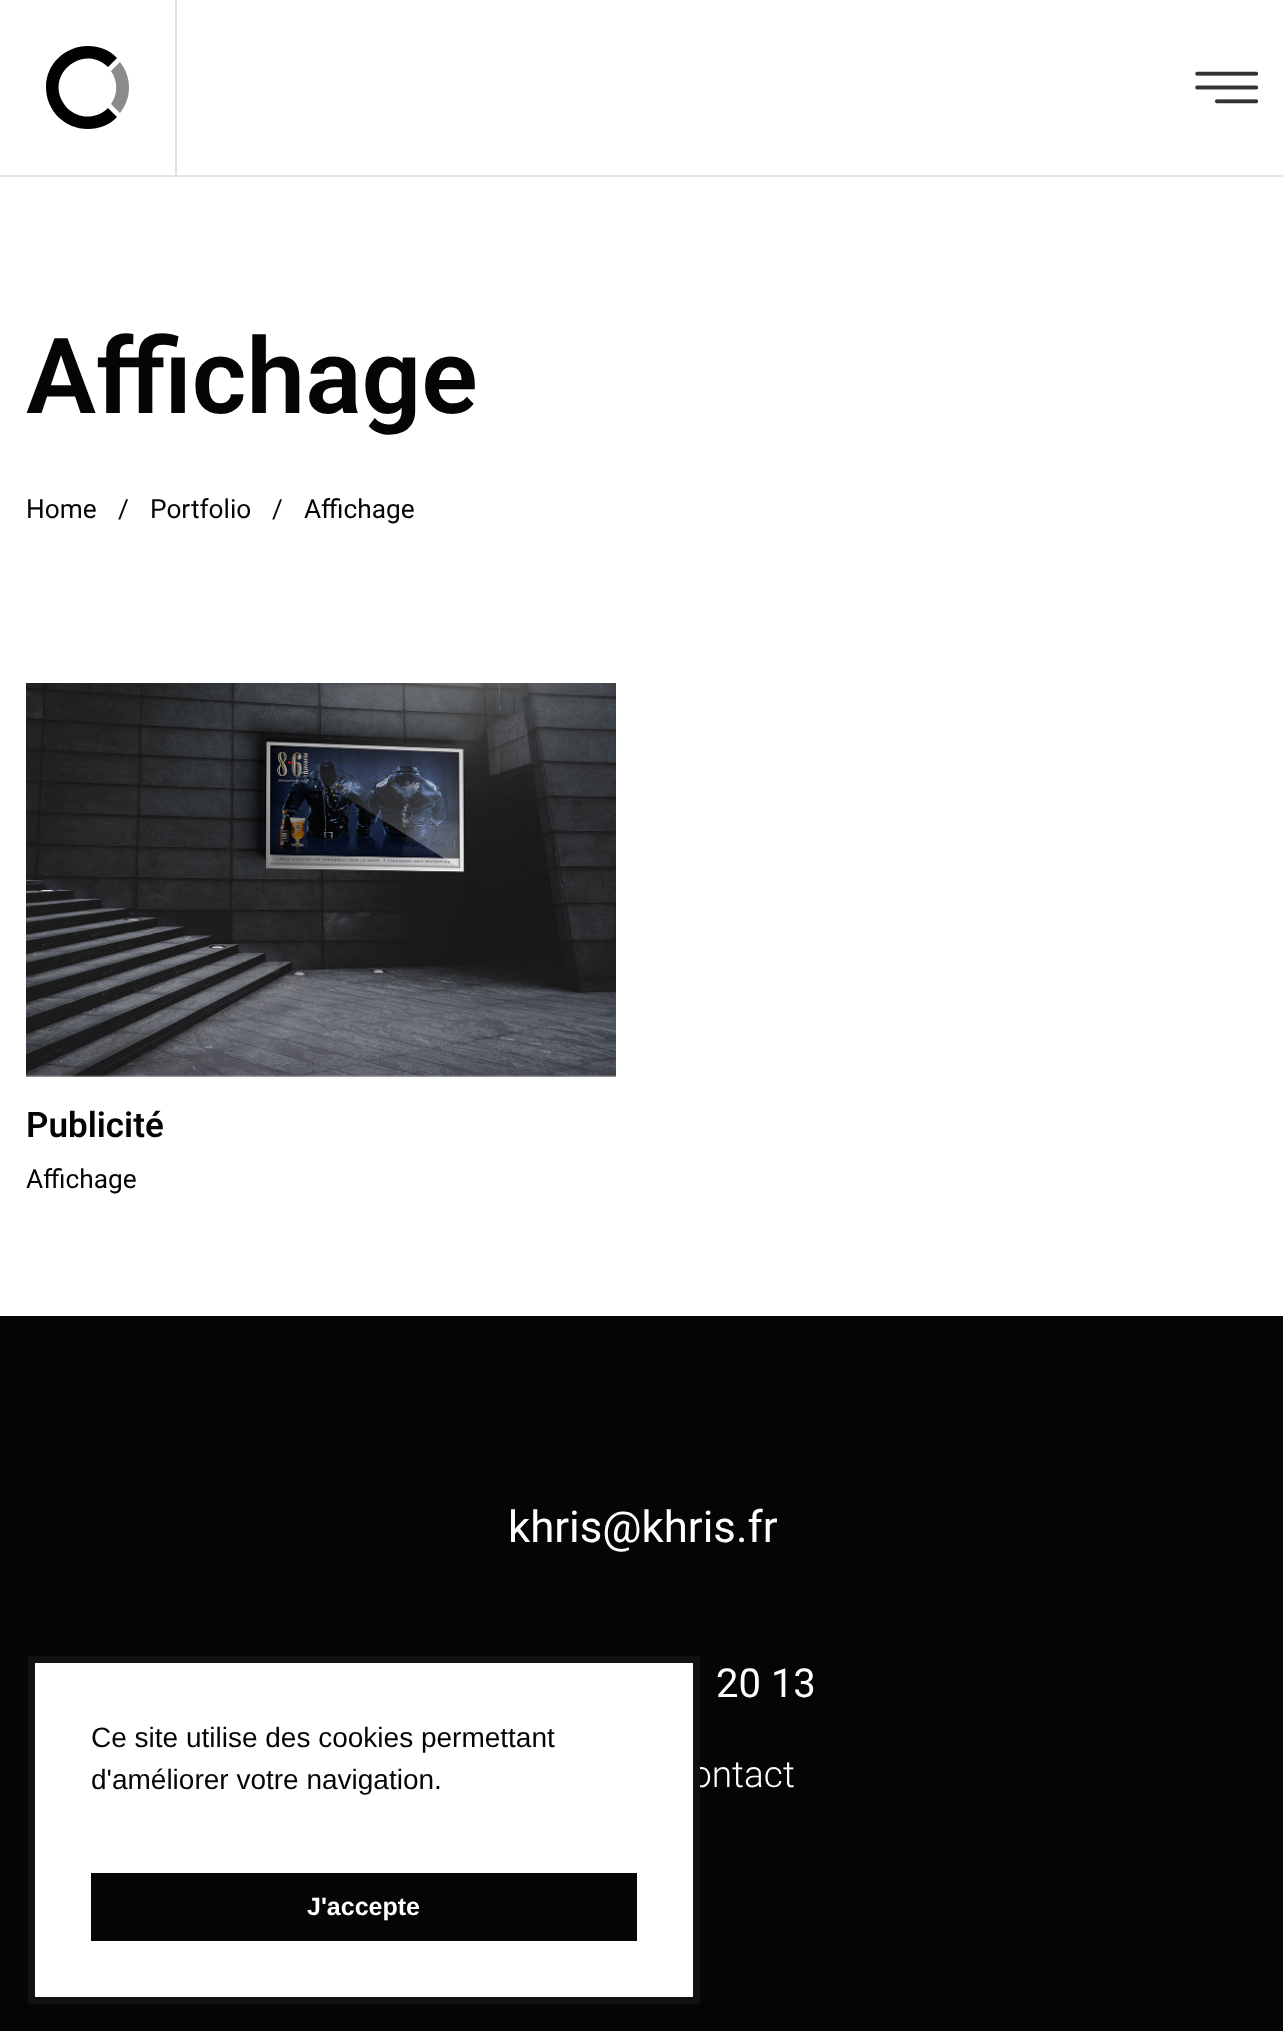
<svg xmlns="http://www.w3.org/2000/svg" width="1283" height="2031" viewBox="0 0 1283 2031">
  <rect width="100%" height="100%" fill="rgb(255,255,255)"/>
  <rect x="0" y="175" width="1283" height="2" fill="rgb(229,229,229)"/>
  <rect x="175" y="0" width="2" height="175" fill="rgb(222,226,230)"/>
  <path d="M120 62L111 71C118 81 118 94 111 104L120 113C132 98 132 77 120 62Z" fill="rgb(139,139,139)"/>
  <path d="M108 108C101 115 91 118 82 116C74 114 68 110 64 104C44 74 84 43 108 67L117 58C110 50 99 46 88 46C65 46 46 64 46 87C46 110 64 129 88 129C99 129 110 125 117 117Z" fill="rgb(0,0,0)"/>
  <image x="1195" y="71" width="63" height="33" href="pic1.png"/>
  <text x="26" y="413" font-family="Roboto" font-size="105" font-weight="600" fill="rgb(5,5,5)">Affichage</text>
  <g font-family="Roboto" font-size="26.25" fill="rgb(5,5,5)">
    <text x="26" y="518">Home</text>
    <text x="118" y="518">/</text>
    <text x="150" y="518">Portfolio</text>
    <text x="272" y="518">/</text>
    <text x="304" y="518">Affichage</text>
  </g>
  <image x="26" y="683" width="590" height="394" href="pic2.png"/>
  <text x="26" y="1137" font-family="Roboto" font-size="35" font-weight="600" fill="rgb(5,5,5)">Publicité</text>
  <text x="26" y="1188" font-family="Roboto" font-size="26.25" fill="rgb(5,5,5)">Affichage</text>
  <rect x="0" y="1316" width="1283" height="715" fill="rgb(5,5,5)"/>
  <text x="508" y="1542" font-family="Roboto" font-size="43.75" fill="rgb(255,255,255)">khris@khris.fr</text>
  <text x="716" y="1697" font-family="Roboto" font-size="40" fill="rgb(255,255,255)">20 13</text>
  <text x="691" y="1787" font-family="Roboto" font-size="37" font-weight="300" fill="rgb(255,255,255)">ontact</text>
  <rect x="31.5" y="1659.5" width="665" height="341" fill="rgb(255,255,255)" stroke="rgb(17,17,17)" stroke-width="7"/>
  <g font-family="Liberation Sans" font-size="28" fill="rgb(5,5,5)">
    <text>
      <tspan x="91" y="1747">Ce site utilise des cookies permettant</tspan>
      <tspan x="91" y="1789">d'améliorer votre navigation.</tspan>
    </text>
  </g>
  <rect x="91" y="1873" width="546" height="68" fill="rgb(5,5,5)"/>
  <text x="307" y="1915" font-family="Liberation Sans" font-size="25" font-weight="bold" fill="rgb(255,255,255)">J'accepte</text>
</svg>
